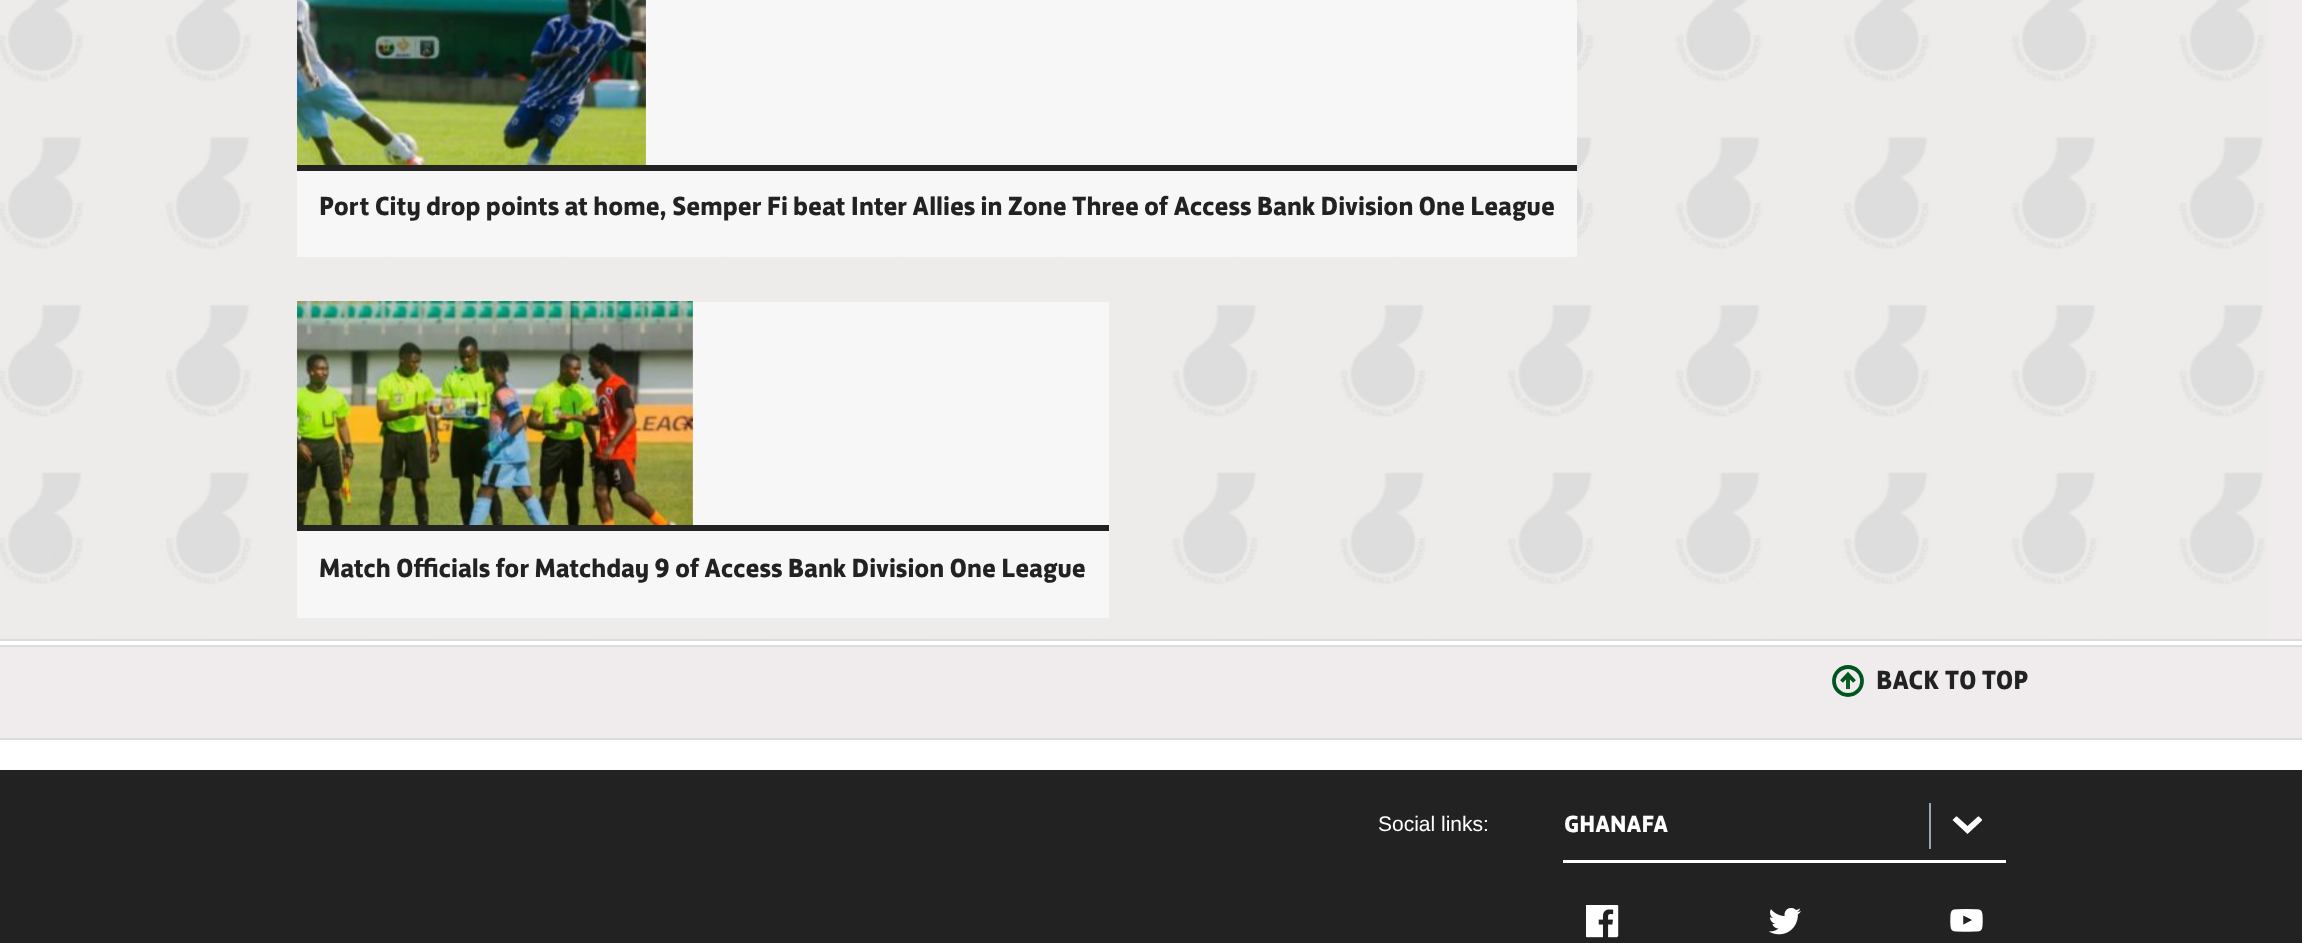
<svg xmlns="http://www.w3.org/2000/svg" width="2302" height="943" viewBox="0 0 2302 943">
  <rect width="100%" height="100%" fill="rgb(240,236,237)"/>
  <image x="0" y="0" width="2268" height="639" href="pic1.png"/>
  <rect x="297" y="0" width="1280" height="257" fill="rgb(247,247,247)"/>
  <image x="297" y="0" width="349" height="165" href="pic2.png"/>
  <rect x="297" y="165" width="1280" height="6" fill="rgb(34,34,34)"/>
  <text x="319" y="215" font-family="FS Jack" font-size="27" font-weight="bold" fill="rgb(34,34,34)">Port City drop points at home, Semper Fi beat Inter Allies in Zone Three of Access Bank Division One League</text>
  <rect x="297" y="302" width="812" height="316" fill="rgb(247,247,247)"/>
  <image x="297" y="301" width="396" height="224" href="pic3.png"/>
  <rect x="297" y="525" width="812" height="6" fill="rgb(34,34,34)"/>
  <text x="319" y="577" font-family="FS Jack" font-size="27" font-weight="bold" fill="rgb(34,34,34)">Match Officials for Matchday 9 of Access Bank Division One League</text>
  <rect x="0" y="641" width="2302" height="4" fill="rgb(255,255,255)"/>
  <rect x="0" y="639" width="2302" height="2" fill="rgb(220,220,220)"/>
  <rect x="0" y="645" width="2302" height="2" fill="rgb(220,220,220)"/>
  <rect x="0" y="738" width="2302" height="2" fill="rgb(220,220,220)"/>
  <circle cx="1848" cy="681" r="14" fill="none" stroke="rgb(0,85,30)" stroke-width="3.8"/>
  <rect x="1846" y="675" width="4" height="14" fill="rgb(12,93,40)"/>
  <path d="M1841.5 681.5L1848 674.5L1854.5 681.5" fill="none" stroke="rgb(0,85,30)" stroke-width="3.8"/>
  <text x="1876" y="689" font-family="FS Jack" font-size="27" font-weight="bold" fill="rgb(34,34,34)">BACK TO TOP</text>
  <rect x="0" y="740" width="2302" height="30" fill="rgb(255,255,255)"/>
  <rect x="0" y="770" width="2302" height="173" fill="rgb(34,34,34)"/>
  <text x="1378" y="831" font-family="Liberation Sans" font-size="21" fill="rgb(255,255,255)">Social links:</text>
  <rect x="1563" y="860" width="443" height="3" fill="rgb(255,255,255)"/>
  <text x="1564" y="832" font-family="FS Jack" font-size="24" font-weight="bold" fill="rgb(255,255,255)">GHANAFA</text>
  <rect x="1929" y="803" width="2" height="46" fill="rgb(153,165,179)"/>
  <path d="M1982 820.5L1967.5 834L1952.5 820L1956 816.5H1957L1967.5 826L1978 816.5H1979L1982 819.5Z" fill="rgb(255,255,255)"/>
  <image x="1586" y="905" width="33" height="33" href="pic4.png"/>
  <image x="1769" y="908" width="32" height="27" href="pic5.png"/>
  <image x="1950" y="909" width="33" height="23" href="pic6.png"/>
</svg>
